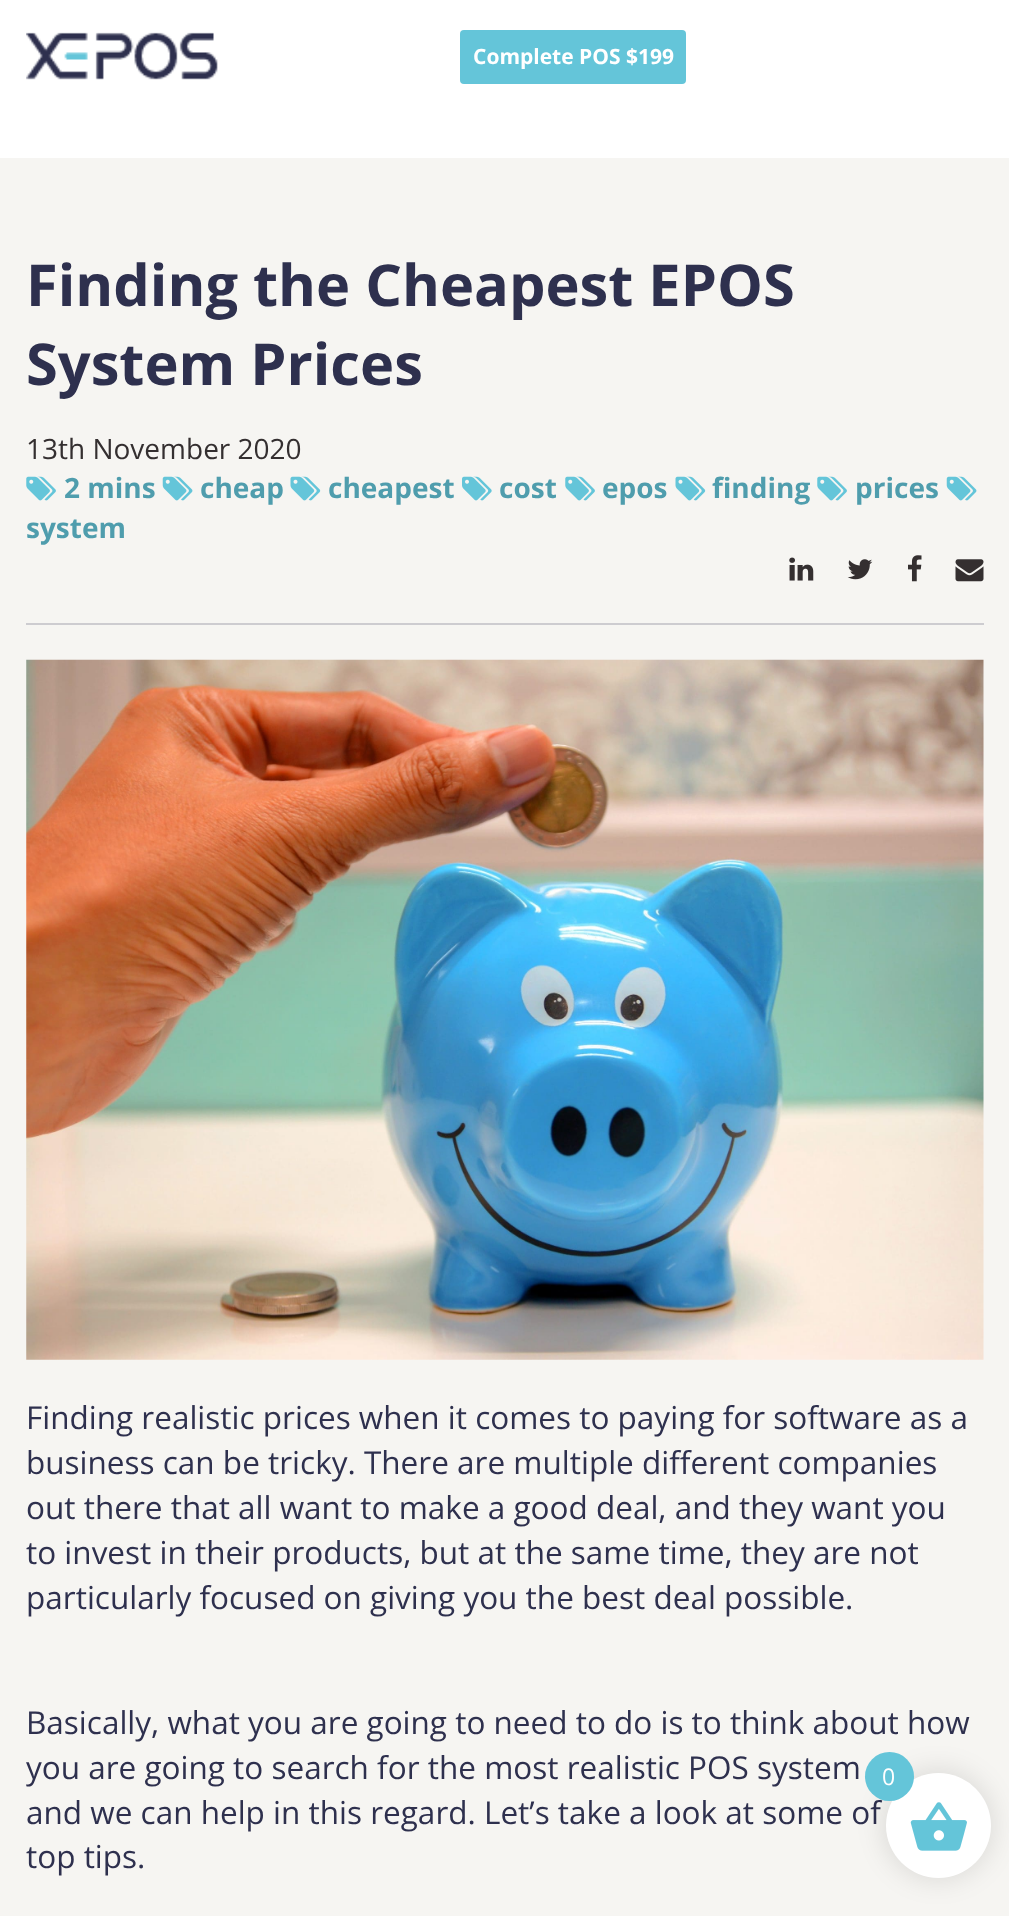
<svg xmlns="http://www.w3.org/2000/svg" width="1009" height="1916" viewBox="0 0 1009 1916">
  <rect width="100%" height="100%" fill="rgb(255,255,255)"/>
  <image x="26" y="32" width="192" height="48" href="pic1.png"/>
  <rect x="460" y="30" width="226" height="54" rx="4" fill="rgb(100,197,217)"/>
  <text x="473" y="64" font-family="Open Sans" font-size="21" font-weight="bold" fill="rgb(255,255,255)">Complete POS $199</text>
  <rect x="0" y="158" width="1009" height="1758" fill="rgb(246,245,242)"/>
  <rect x="26" y="623" width="958" height="2" fill="rgb(205,204,208)"/>
  <g font-family="Open Sans" font-size="57.75" font-weight="bold" fill="rgb(46,48,78)">
    <text>
      <tspan x="26" y="306">Finding the Cheapest EPOS</tspan>
      <tspan x="26" y="385">System Prices</tspan>
    </text>
  </g>
  <text x="26" y="459" font-family="Open Sans" font-size="28" fill="rgb(52,47,48)">13th November 2020</text>
  <image x="26" y="476" width="30" height="25" href="pic2.png"/>
  <text x="64" y="498" font-family="Open Sans" font-size="28" font-weight="bold" fill="rgb(79,157,173)">2 mins</text>
  <image x="162" y="476" width="31" height="25" href="pic3.png"/>
  <text x="200" y="498" font-family="Open Sans" font-size="28" font-weight="bold" fill="rgb(79,157,173)">cheap</text>
  <image x="290" y="476" width="31" height="25" href="pic4.png"/>
  <text x="328" y="498" font-family="Open Sans" font-size="28" font-weight="bold" fill="rgb(79,157,173)">cheapest</text>
  <image x="462" y="476" width="30" height="25" href="pic5.png"/>
  <text x="499" y="498" font-family="Open Sans" font-size="28" font-weight="bold" fill="rgb(79,157,173)">cost</text>
  <image x="565" y="476" width="30" height="25" href="pic2.png"/>
  <text x="602" y="498" font-family="Open Sans" font-size="28" font-weight="bold" fill="rgb(79,157,173)">epos</text>
  <image x="675" y="476" width="31" height="25" href="pic4.png"/>
  <text x="712" y="498" font-family="Open Sans" font-size="28" font-weight="bold" fill="rgb(79,157,173)">finding</text>
  <image x="817" y="476" width="30" height="25" href="pic2.png"/>
  <text x="855" y="498" font-family="Open Sans" font-size="28" font-weight="bold" fill="rgb(79,157,173)">prices</text>
  <image x="946" y="476" width="31" height="25" href="pic3.png"/>
  <text x="26" y="538" font-family="Open Sans" font-size="28" font-weight="bold" fill="rgb(79,157,173)">system</text>
  <image x="789" y="557" width="25" height="24" href="pic6.png"/>
  <image x="847" y="559" width="26" height="21" href="pic7.png"/>
  <image x="908" y="555" width="14" height="27" href="pic8.png"/>
  <image x="955" y="559" width="29" height="23" href="pic9.png"/>
  <image x="26" y="659" width="958" height="701" href="pic10.png"/>
  <g font-family="Open Sans" font-size="31.5" fill="rgb(46,48,78)">
    <text>
      <tspan x="26" y="1429">Finding realistic prices when it comes to paying for software as a</tspan>
      <tspan x="26" y="1474">business can be tricky. There are multiple different companies</tspan>
      <tspan x="26" y="1519">out there that all want to make a good deal, and they want you</tspan>
      <tspan x="26" y="1564">to invest in their products, but at the same time, they are not</tspan>
      <tspan x="26" y="1609">particularly focused on giving you the best deal possible.</tspan>
    </text>
    <text>
      <tspan x="26" y="1734">Basically, what you are going to need to do is to think about how</tspan>
      <tspan x="26" y="1779">you are going to search for the most realistic POS system</tspan>
      <tspan x="26" y="1824">and we can help in this regard. Let’s take a look at some of</tspan>
      <tspan x="26" y="1868">top tips.</tspan>
    </text>
  </g>
  <rect x="882" y="1769" width="112" height="112" rx="56" fill="rgba(0,0,0,0.1)" filter="blur(13px)"/>
  <circle cx="938.5" cy="1825.5" r="52.5" fill="rgb(255,255,255)"/>
  <circle cx="889.5" cy="1776.5" r="24.5" fill="rgb(100,197,217)"/>
  <text x="882" y="1785" font-family="Open Sans" font-size="23" fill="rgb(255,255,255)">0</text>
  <image x="910" y="1802" width="57" height="49" href="pic11.png"/>
</svg>
